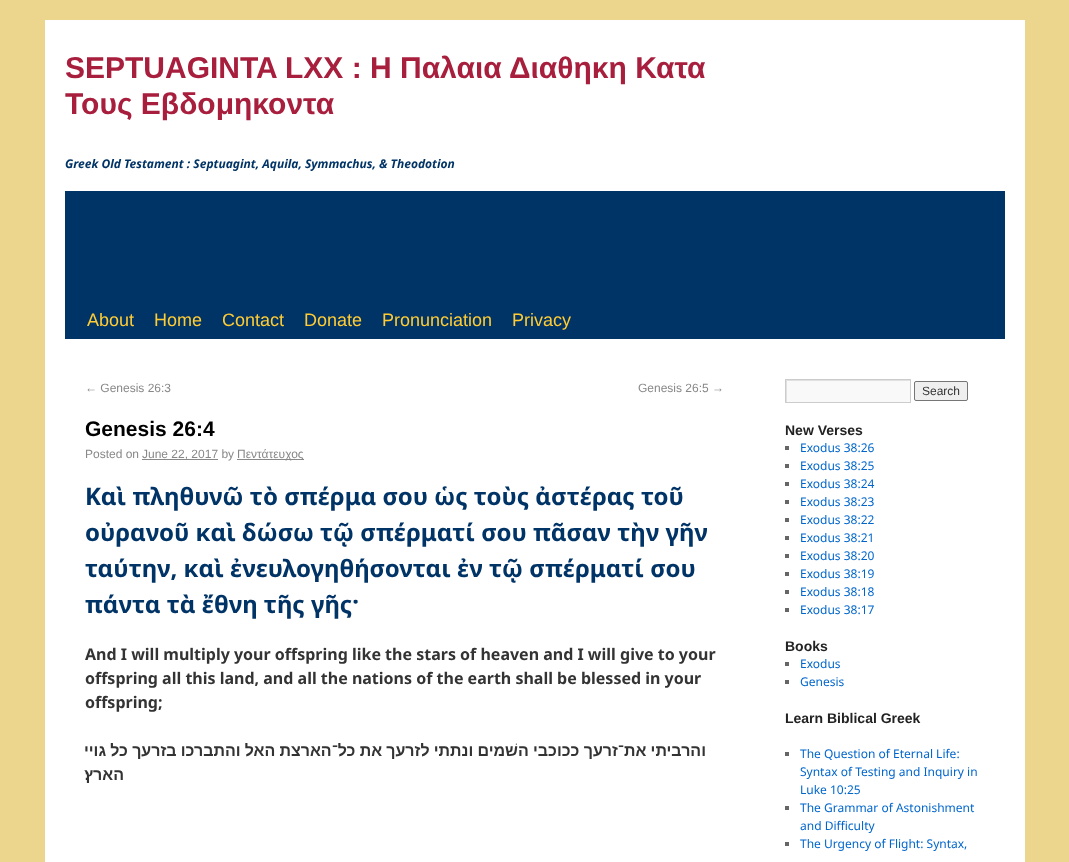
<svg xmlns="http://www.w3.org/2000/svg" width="1069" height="862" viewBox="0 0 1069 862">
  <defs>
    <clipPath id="clip1"><rect x="786" y="380" width="124" height="22"/></clipPath>
  </defs>
  <rect width="100%" height="100%" fill="rgb(236,213,140)"/>
  <rect x="45" y="20" width="980" height="842" fill="rgb(255,255,255)"/>
  <g font-family="Liberation Sans" font-size="30" font-weight="bold" fill="rgb(168,30,61)">
    <text>
      <tspan x="65" y="78">SEPTUAGINTA LXX : Η Παλαια Διαθηκη Κατα</tspan>
      <tspan x="65" y="114">Τους Εβδομηκοντα</tspan>
    </text>
  </g>
  <text x="65" y="168" font-family="Noto Sans" font-size="12" font-weight="bold" font-style="italic" fill="rgb(0,51,102)">Greek Old Testament : Septuagint, Aquila, Symmachus, &amp; Theodotion</text>
  <rect x="65" y="191" width="940" height="148" fill="rgb(0,51,102)"/>
  <g font-family="Liberation Sans" font-size="18" fill="rgb(255,204,51)">
    <text x="87" y="326">About</text>
    <text x="154" y="326">Home</text>
    <text x="222" y="326">Contact</text>
    <text x="304" y="326">Donate</text>
    <text x="382" y="326">Pronunciation</text>
    <text x="512" y="326">Privacy</text>
  </g>
  <g font-family="Liberation Sans" font-size="12" fill="rgb(136,136,136)">
    <text x="85" y="392">← Genesis 26:3</text>
    <text x="638" y="392">Genesis 26:5 →</text>
  </g>
  <text x="85" y="436" font-family="Liberation Sans" font-size="21" font-weight="bold" fill="rgb(0,0,0)">Genesis 26:4</text>
  <text x="85" y="458" font-family="Liberation Sans" font-size="12" fill="rgb(136,136,136)">Posted on</text>
  <rect x="142" y="459" width="76" height="1" fill="rgb(136,136,136)"/>
  <text x="142" y="458" font-family="Liberation Sans" font-size="12" fill="rgb(136,136,136)">June 22, 2017 by</text>
  <rect x="237" y="459" width="67" height="1" fill="rgb(136,136,136)"/>
  <text x="237" y="458" font-family="Liberation Sans" font-size="12" fill="rgb(136,136,136)">Πεντάτευχος</text>
  <g font-family="Noto Sans" font-size="24" font-weight="bold" fill="rgb(0,51,102)">
    <text>
      <tspan x="85" y="505">Καὶ πληθυνῶ τὸ σπέρμα σου ὡς τοὺς ἀστέρας τοῦ</tspan>
      <tspan x="85" y="541">οὐρανοῦ καὶ δώσω τῷ σπέρματί σου πᾶσαν τὴν γῆν</tspan>
      <tspan x="85" y="577">ταύτην, καὶ ἐνευλογηθήσονται ἐν τῷ σπέρματί σου</tspan>
      <tspan x="85" y="613">πάντα τὰ ἔθνη τῆς γῆς·</tspan>
    </text>
  </g>
  <g font-family="Noto Sans" font-size="16" font-weight="bold" fill="rgb(51,51,51)">
    <text>
      <tspan x="85" y="660">And I will multiply your offspring like the stars of heaven and I will give to your</tspan>
      <tspan x="85" y="684">offspring all this land, and all the nations of the earth shall be blessed in your</tspan>
      <tspan x="85" y="708">offspring;</tspan>
    </text>
  </g>
  <g font-family="Liberation Sans" font-size="16" font-weight="bold" direction="rtl" fill="rgb(51,51,51)">
    <text x="706" y="756" word-spacing="-0.25">והרביתי את־זרעך ככוכבי השׁמים ונתתי לזרעך את כל־הארצת האל והתברכו בזרעך כל גויי</text>
    <text x="124" y="780">הארץ׃</text>
  </g>
  <rect x="787" y="381" width="123" height="21" fill="rgb(249,249,249)"/>
  <g clip-path="url(#clip1)">
    <path d="M687 281H1009V501H687ZM787 381H911V403H787Z" fill="rgb(224,224,224)" fill-rule="evenodd"/>
  </g>
  <rect x="785.5" y="379.5" width="125" height="23" fill="none" stroke="rgb(204,204,204)"/>
  <rect x="914.5" y="381.5" width="53" height="19" rx="1.5" fill="rgb(239,239,239)" stroke="rgb(118,118,118)"/>
  <text x="922" y="395" font-family="Liberation Sans" font-size="12" fill="rgb(51,51,51)">Search</text>
  <text x="785" y="435" font-family="Liberation Sans" font-size="14" font-weight="bold" fill="rgb(34,34,34)">New Verses</text>
  <rect x="785" y="446" width="4" height="4" fill="rgb(102,102,102)"/>
  <text x="800" y="452" font-family="Noto Sans" font-size="12" fill="rgb(0,102,204)">Exodus 38:26</text>
  <rect x="785" y="464" width="4" height="4" fill="rgb(102,102,102)"/>
  <text x="800" y="470" font-family="Noto Sans" font-size="12" fill="rgb(0,102,204)">Exodus 38:25</text>
  <rect x="785" y="482" width="4" height="4" fill="rgb(102,102,102)"/>
  <text x="800" y="488" font-family="Noto Sans" font-size="12" fill="rgb(0,102,204)">Exodus 38:24</text>
  <rect x="785" y="500" width="4" height="4" fill="rgb(102,102,102)"/>
  <text x="800" y="506" font-family="Noto Sans" font-size="12" fill="rgb(0,102,204)">Exodus 38:23</text>
  <rect x="785" y="518" width="4" height="4" fill="rgb(102,102,102)"/>
  <text x="800" y="524" font-family="Noto Sans" font-size="12" fill="rgb(0,102,204)">Exodus 38:22</text>
  <rect x="785" y="536" width="4" height="4" fill="rgb(102,102,102)"/>
  <text x="800" y="542" font-family="Noto Sans" font-size="12" fill="rgb(0,102,204)">Exodus 38:21</text>
  <rect x="785" y="554" width="4" height="4" fill="rgb(102,102,102)"/>
  <text x="800" y="560" font-family="Noto Sans" font-size="12" fill="rgb(0,102,204)">Exodus 38:20</text>
  <rect x="785" y="572" width="4" height="4" fill="rgb(102,102,102)"/>
  <text x="800" y="578" font-family="Noto Sans" font-size="12" fill="rgb(0,102,204)">Exodus 38:19</text>
  <rect x="785" y="590" width="4" height="4" fill="rgb(102,102,102)"/>
  <text x="800" y="596" font-family="Noto Sans" font-size="12" fill="rgb(0,102,204)">Exodus 38:18</text>
  <rect x="785" y="608" width="4" height="4" fill="rgb(102,102,102)"/>
  <text x="800" y="614" font-family="Noto Sans" font-size="12" fill="rgb(0,102,204)">Exodus 38:17</text>
  <text x="785" y="651" font-family="Liberation Sans" font-size="14" font-weight="bold" fill="rgb(34,34,34)">Books</text>
  <rect x="785" y="662" width="4" height="4" fill="rgb(102,102,102)"/>
  <text x="800" y="668" font-family="Noto Sans" font-size="12" fill="rgb(0,102,204)">Exodus</text>
  <rect x="785" y="680" width="4" height="4" fill="rgb(102,102,102)"/>
  <text x="800" y="686" font-family="Noto Sans" font-size="12" fill="rgb(0,102,204)">Genesis</text>
  <text x="785" y="723" font-family="Liberation Sans" font-size="14" font-weight="bold" fill="rgb(34,34,34)">Learn Biblical Greek</text>
  <rect x="785" y="752" width="4" height="4" fill="rgb(102,102,102)"/>
  <g font-family="Noto Sans" font-size="12" fill="rgb(0,102,204)">
    <text>
      <tspan x="800" y="758">The Question of Eternal Life:</tspan>
      <tspan x="800" y="776">Syntax of Testing and Inquiry in</tspan>
      <tspan x="800" y="794">Luke 10:25</tspan>
    </text>
  </g>
  <rect x="785" y="806" width="4" height="4" fill="rgb(102,102,102)"/>
  <g font-family="Noto Sans" font-size="12" fill="rgb(0,102,204)">
    <text>
      <tspan x="800" y="812">The Grammar of Astonishment</tspan>
      <tspan x="800" y="830">and Difficulty</tspan>
    </text>
  </g>
  <rect x="785" y="842" width="4" height="4" fill="rgb(102,102,102)"/>
  <text x="800" y="848" font-family="Noto Sans" font-size="12" fill="rgb(0,102,204)">The Urgency of Flight: Syntax,</text>
</svg>
